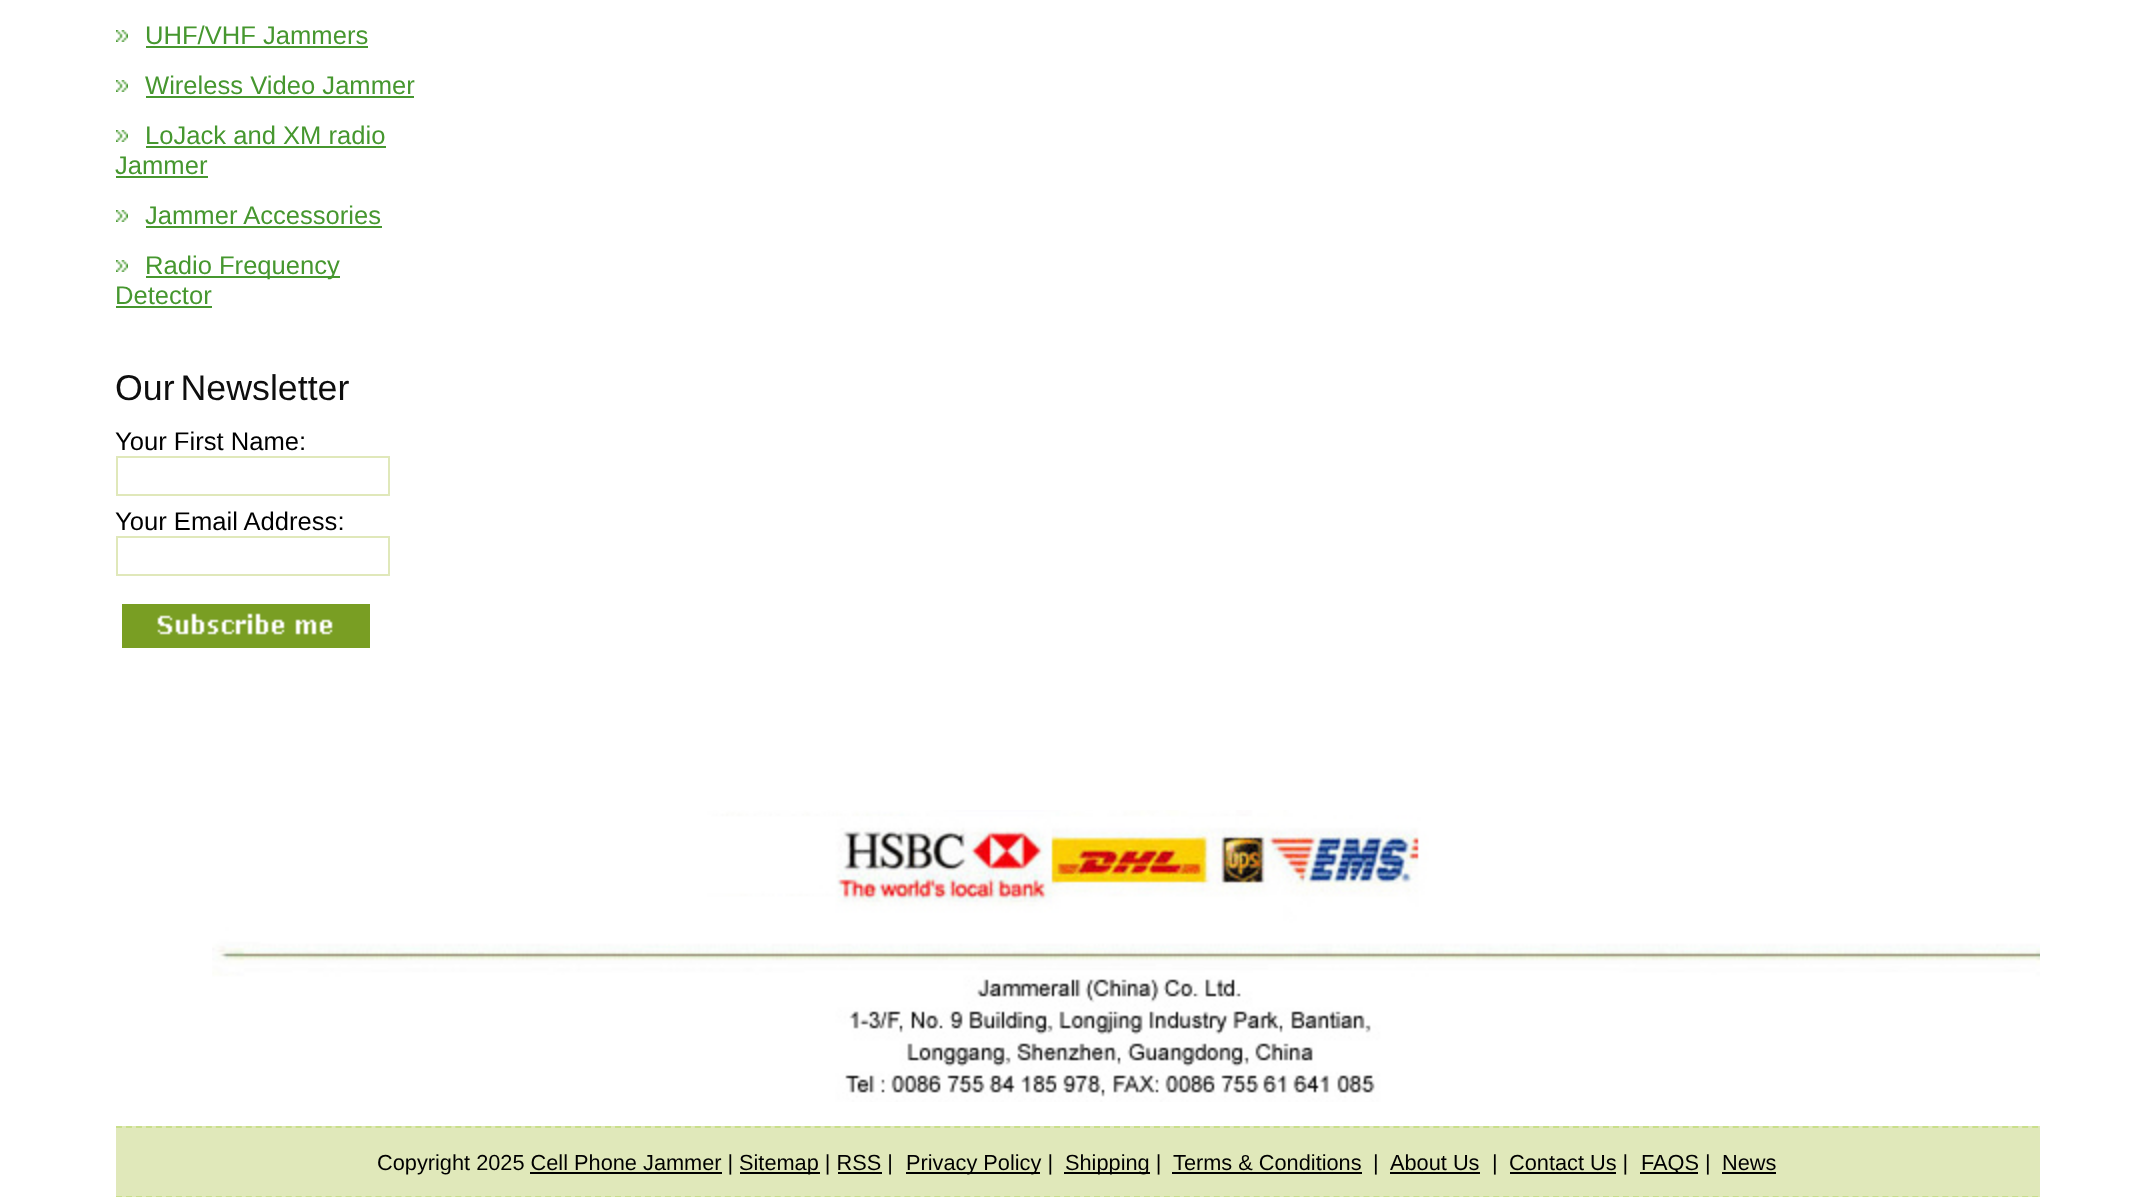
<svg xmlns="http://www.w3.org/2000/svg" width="2154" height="1197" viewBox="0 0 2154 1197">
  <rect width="100%" height="100%" fill="rgb(255,255,255)"/>
  <image x="116" y="30" width="12" height="12" href="pic1.png"/>
  <text x="145" y="44" font-family="Liberation Sans" font-size="25.6" fill="rgb(70,151,47)">UHF/VHF Jammers</text>
  <rect x="146" y="46" width="222" height="2" fill="rgb(70,151,47)"/>
  <image x="116" y="80" width="12" height="12" href="pic1.png"/>
  <text x="145" y="94" font-family="Liberation Sans" font-size="25.6" fill="rgb(70,151,47)">Wireless Video Jammer</text>
  <rect x="146" y="96" width="268" height="2" fill="rgb(70,151,47)"/>
  <image x="116" y="130" width="12" height="12" href="pic1.png"/>
  <text x="145" y="144" font-family="Liberation Sans" font-size="25.6" fill="rgb(70,151,47)">LoJack and XM radio</text>
  <rect x="146" y="146" width="240" height="2" fill="rgb(70,151,47)"/>
  <text x="115" y="174" font-family="Liberation Sans" font-size="25.6" fill="rgb(70,151,47)">Jammer</text>
  <rect x="116" y="176" width="92" height="2" fill="rgb(70,151,47)"/>
  <image x="116" y="210" width="12" height="12" href="pic1.png"/>
  <text x="145" y="224" font-family="Liberation Sans" font-size="25.6" fill="rgb(70,151,47)">Jammer Accessories</text>
  <rect x="146" y="226" width="236" height="2" fill="rgb(70,151,47)"/>
  <image x="116" y="260" width="12" height="12" href="pic1.png"/>
  <rect x="146" y="276" width="194" height="2" fill="rgb(70,151,47)"/>
  <g font-family="Liberation Sans" font-size="25.6" fill="rgb(70,151,47)">
    <text x="145" y="274">Radio Frequency</text>
    <text x="115" y="304">Detector</text>
  </g>
  <rect x="116" y="306" width="96" height="2" fill="rgb(70,151,47)"/>
  <text x="115" y="400" word-spacing="-4" font-family="Liberation Sans" font-size="35.75" fill="rgb(14,14,14)">Our Newsletter</text>
  <text x="115" y="450" font-family="Liberation Sans" font-size="25.6" fill="rgb(0,0,0)">Your First Name:</text>
  <rect x="117" y="457" width="272" height="38" fill="none" stroke="rgb(224,232,186)" stroke-width="2"/>
  <text x="115" y="530" font-family="Liberation Sans" font-size="25.6" fill="rgb(0,0,0)">Your Email Address:</text>
  <rect x="117" y="537" width="272" height="38" fill="none" stroke="rgb(224,232,186)" stroke-width="2"/>
  <image x="122" y="604" width="248" height="44" href="pic2.png"/>
  <image x="212" y="810" width="1828" height="292" href="pic3.png"/>
  <rect x="116" y="1126" width="1924" height="71" fill="rgb(224,232,186)"/>
  <path d="M116 1127H2040" fill="none" stroke="rgb(201,223,139)" stroke-width="2" stroke-dasharray="6 3.98"/>
  <path d="M116 1197H2040" fill="none" stroke="rgb(201,223,139)" stroke-width="2" stroke-dasharray="6 3.98"/>
  <text x="377" y="1170" font-family="Liberation Sans" font-size="21.75" fill="rgb(0,0,0)">Copyright 2025 Cell Phone Jammer |</text>
  <rect x="740" y="1172" width="80" height="2" fill="rgb(0,0,0)"/>
  <text x="739" y="1170" font-family="Liberation Sans" font-size="21.75" fill="rgb(0,0,0)">Sitemap | RSS |</text>
  <rect x="906" y="1172" width="134" height="2" fill="rgb(0,0,0)"/>
  <text x="906" y="1170" font-family="Liberation Sans" font-size="21.75" fill="rgb(0,0,0)">Privacy Policy |</text>
  <rect x="1064" y="1172" width="86" height="2" fill="rgb(0,0,0)"/>
  <g font-family="Liberation Sans" font-size="21.75" fill="rgb(0,0,0)">
    <text x="1065" y="1170">Shipping |</text>
    <text x="1173" y="1170">Terms &amp; Conditions</text>
  </g>
  <rect x="1172" y="1172" width="190" height="2" fill="rgb(0,0,0)"/>
  <g font-family="Liberation Sans" font-size="21.75" fill="rgb(0,0,0)">
    <text x="1373" y="1170">|</text>
    <text x="1390" y="1170">About Us</text>
  </g>
  <rect x="1390" y="1172" width="90" height="2" fill="rgb(0,0,0)"/>
  <text x="1492" y="1170" font-family="Liberation Sans" font-size="21.75" fill="rgb(0,0,0)">|</text>
  <rect x="1510" y="1172" width="106" height="2" fill="rgb(0,0,0)"/>
  <text x="1509" y="1170" font-family="Liberation Sans" font-size="21.75" fill="rgb(0,0,0)">Contact Us |</text>
  <rect x="1640" y="1172" width="58" height="2" fill="rgb(0,0,0)"/>
  <g font-family="Liberation Sans" font-size="21.75" fill="rgb(0,0,0)">
    <text x="1641" y="1170">FAQS |</text>
    <text x="1722" y="1170">News</text>
  </g>
  <rect x="1722" y="1172" width="54" height="2" fill="rgb(0,0,0)"/>
  <rect x="530" y="1172" width="192" height="2" fill="rgb(0,0,0)"/>
  <rect x="838" y="1172" width="44" height="2" fill="rgb(0,0,0)"/>
</svg>
